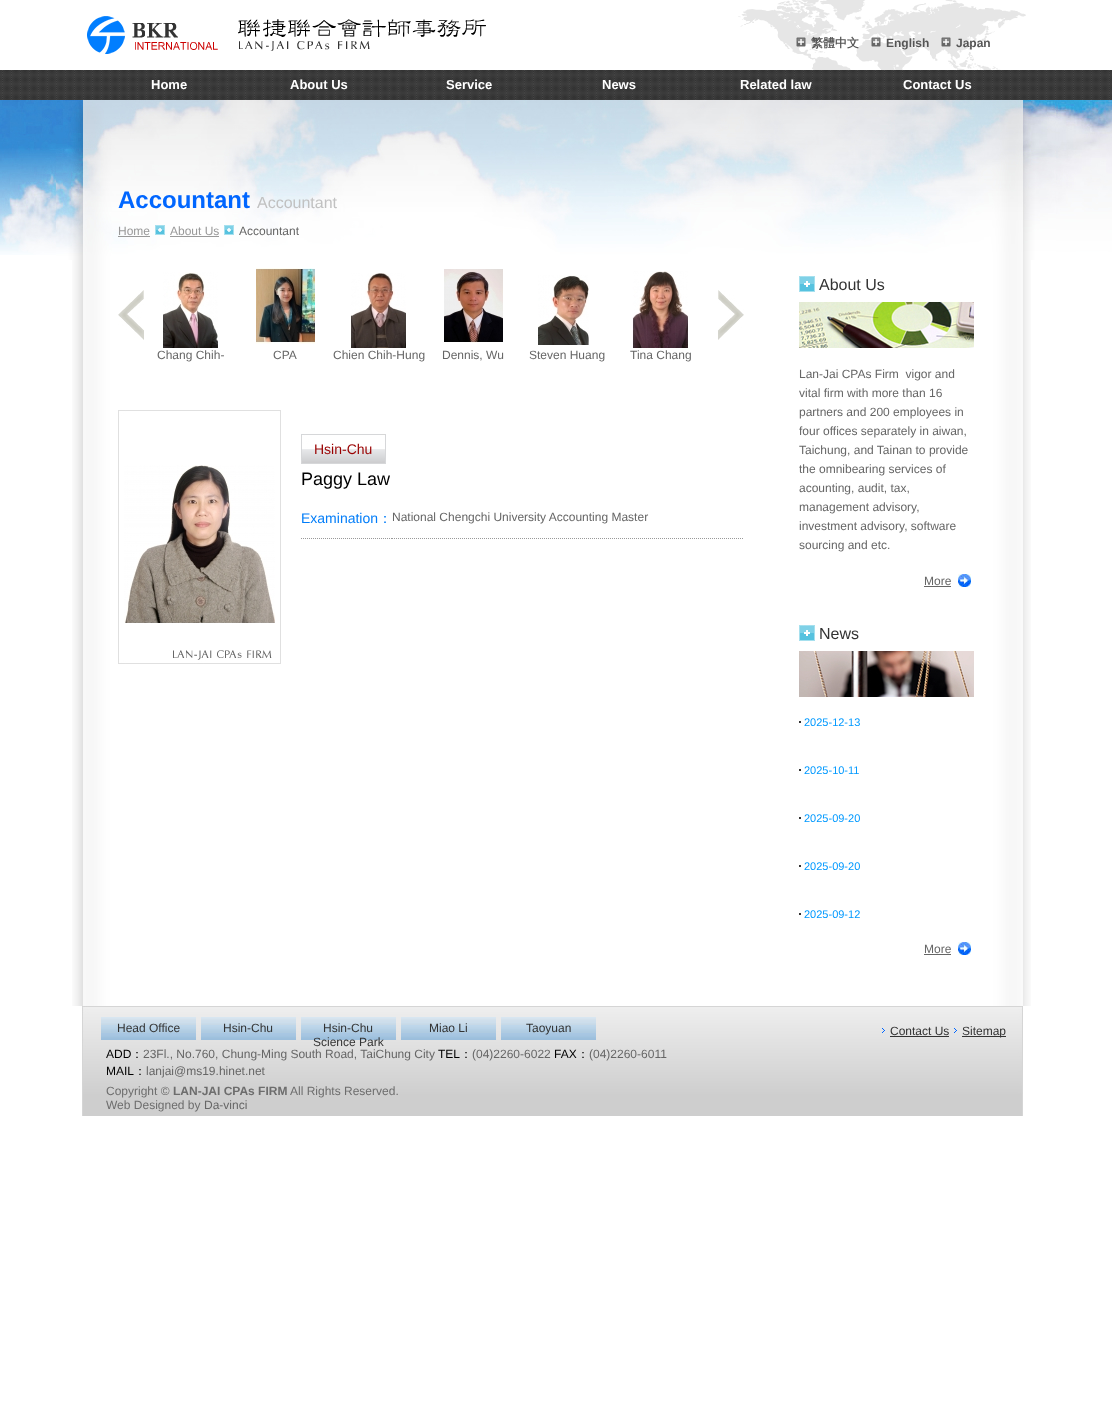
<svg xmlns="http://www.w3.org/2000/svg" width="1112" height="1417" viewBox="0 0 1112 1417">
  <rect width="100%" height="100%" fill="rgb(255,255,255)"/>
  <image x="87" y="16" width="399" height="38" href="pic1.png"/>
  <image x="738" y="0" width="288" height="70" href="pic2.png"/>
  <image x="796" y="37" width="10" height="10" href="pic3.png"/>
  <text x="811" y="47" font-family="WenQuanYi Zen Hei" font-size="12" font-weight="bold" fill="rgb(85,85,85)">繁體中文</text>
  <image x="871" y="37" width="10" height="10" href="pic4.png"/>
  <text x="886" y="47" font-family="Liberation Sans" font-size="12" font-weight="bold" fill="rgb(85,85,85)">English</text>
  <image x="941" y="37" width="10" height="10" href="pic5.png"/>
  <text x="956" y="47" font-family="Liberation Sans" font-size="12" font-weight="bold" fill="rgb(85,85,85)">Japan</text>
  <image x="0" y="70" width="1112" height="30" href="pic6.png"/>
  <g font-family="Liberation Sans" font-size="13" font-weight="bold" fill="rgb(255,255,255)">
    <text x="151" y="89">Home</text>
    <text x="290" y="89">About Us</text>
    <text x="446" y="89">Service</text>
    <text x="602" y="89">News</text>
    <text x="740" y="89">Related law</text>
    <text x="903" y="89">Contact Us</text>
  </g>
  <image x="0" y="100" width="1112" height="155" href="pic7.png"/>
  <image x="56" y="100" width="1000" height="160" href="pic8.png"/>
  <text x="118" y="208" font-family="Liberation Sans" font-size="24" font-weight="bold" fill="rgb(0,102,255)">Accountant</text>
  <text x="257" y="208" font-family="Liberation Sans" font-size="16" fill="rgb(193,193,193)">Accountant</text>
  <text x="118" y="235" font-family="Liberation Sans" font-size="12" fill="rgb(153,153,153)">Home</text>
  <rect x="118" y="236" width="32" height="1" fill="rgb(153,153,153)"/>
  <image x="155" y="225" width="10" height="10" href="pic9.png"/>
  <text x="170" y="235" font-family="Liberation Sans" font-size="12" fill="rgb(153,153,153)">About Us</text>
  <rect x="170" y="236" width="49" height="1" fill="rgb(153,153,153)"/>
  <image x="224" y="225" width="10" height="10" href="pic9.png"/>
  <text x="239" y="235" font-family="Liberation Sans" font-size="12" fill="rgb(102,102,102)">Accountant</text>
  <image x="72" y="260" width="959" height="746" href="pic10.png"/>
  <image x="118" y="290" width="26" height="50" href="pic11.png"/>
  <image x="718" y="290" width="26" height="50" href="pic12.png"/>
  <image x="163" y="272" width="55" height="76" href="pic13.png"/>
  <text x="157" y="359" font-family="Liberation Sans" font-size="12" fill="rgb(102,102,102)">Chang Chih-</text>
  <image x="256" y="268" width="59" height="76" href="pic14.png"/>
  <text x="273" y="359" font-family="Liberation Sans" font-size="12" fill="rgb(102,102,102)">CPA</text>
  <image x="350" y="273" width="56" height="75" href="pic15.png"/>
  <text x="333" y="359" font-family="Liberation Sans" font-size="12" fill="rgb(102,102,102)">Chien Chih-Hung</text>
  <image x="444" y="269" width="59" height="74" href="pic16.png"/>
  <text x="442" y="359" font-family="Liberation Sans" font-size="12" fill="rgb(102,102,102)">Dennis, Wu</text>
  <image x="538" y="275" width="51" height="70" href="pic17.png"/>
  <text x="529" y="359" font-family="Liberation Sans" font-size="12" fill="rgb(102,102,102)">Steven Huang</text>
  <image x="632" y="271" width="56" height="77" href="pic18.png"/>
  <text x="630" y="359" font-family="Liberation Sans" font-size="12" fill="rgb(102,102,102)">Tina Chang</text>
  <image x="118" y="410" width="163" height="254" href="pic19.png"/>
  <image x="124" y="465" width="151" height="158" href="pic20.png"/>
  <image x="301" y="434" width="85" height="30" href="pic21.png"/>
  <text x="314" y="454" font-family="Liberation Sans" font-size="14" fill="rgb(153,0,0)">Hsin-Chu</text>
  <text x="301" y="485" font-family="Liberation Sans" font-size="18" fill="rgb(0,0,0)">Paggy Law</text>
  <path d="M301 538.5H392" fill="none" stroke="rgb(153,153,153)" stroke-dasharray="1 1"/>
  <text x="301" y="523" font-family="Liberation Sans" font-size="14" fill="rgb(2,125,249)">Examination</text>
  <text x="378" y="523" font-family="WenQuanYi Zen Hei" font-size="14" font-weight="500" fill="rgb(2,125,249)">：</text>
  <path d="M392 538.5H744" fill="none" stroke="rgb(153,153,153)" stroke-dasharray="1 1"/>
  <text x="392" y="521" font-family="Liberation Sans" font-size="12" fill="rgb(102,102,102)">National Chengchi University Accounting Master</text>
  <image x="799" y="276" width="16" height="16" href="pic22.png"/>
  <text x="819" y="290" font-family="Liberation Sans" font-size="16" fill="rgb(51,51,51)">About Us</text>
  <image x="799" y="302" width="175" height="46" href="pic23.png"/>
  <g font-family="Liberation Sans" font-size="12" fill="rgb(102,102,102)">
    <text xml:space="preserve"><tspan x="799" y="378">Lan-Jai CPAs Firm  vigor and</tspan><tspan x="799" y="397">vital firm with more than 16</tspan><tspan x="799" y="416">partners and 200 employees in</tspan><tspan x="799" y="435">four offices separately in aiwan,</tspan><tspan x="799" y="454">Taichung, and Tainan to provide</tspan><tspan x="799" y="473">the omnibearing services of</tspan><tspan x="799" y="492">acounting, audit, tax,</tspan><tspan x="799" y="511">management advisory,</tspan><tspan x="799" y="530">investment advisory, software</tspan><tspan x="799" y="549">sourcing and etc.</tspan></text>
  </g>
  <image x="958" y="574" width="13" height="13" href="pic24.png"/>
  <text x="924" y="585" font-family="Liberation Sans" font-size="12" fill="rgb(102,102,102)">More</text>
  <rect x="924" y="586" width="27" height="1" fill="rgb(102,102,102)"/>
  <image x="799" y="625" width="16" height="16" href="pic22.png"/>
  <text x="819" y="639" font-family="Liberation Sans" font-size="16" fill="rgb(51,51,51)">News</text>
  <image x="799" y="651" width="175" height="46" href="pic25.png"/>
  <rect x="799" y="721" width="2" height="2" fill="rgb(51,51,51)"/>
  <text x="804" y="726" font-family="Liberation Sans" font-size="11" fill="rgb(0,153,255)">2025-12-13</text>
  <rect x="799" y="769" width="2" height="2" fill="rgb(51,51,51)"/>
  <text x="804" y="774" font-family="Liberation Sans" font-size="11" fill="rgb(0,153,255)">2025-10-11</text>
  <rect x="799" y="817" width="2" height="2" fill="rgb(51,51,51)"/>
  <text x="804" y="822" font-family="Liberation Sans" font-size="11" fill="rgb(0,153,255)">2025-09-20</text>
  <rect x="799" y="865" width="2" height="2" fill="rgb(51,51,51)"/>
  <text x="804" y="870" font-family="Liberation Sans" font-size="11" fill="rgb(0,153,255)">2025-09-20</text>
  <rect x="799" y="913" width="2" height="2" fill="rgb(51,51,51)"/>
  <text x="804" y="918" font-family="Liberation Sans" font-size="11" fill="rgb(0,153,255)">2025-09-12</text>
  <image x="958" y="942" width="13" height="13" href="pic24.png"/>
  <text x="924" y="953" font-family="Liberation Sans" font-size="12" fill="rgb(102,102,102)">More</text>
  <rect x="924" y="954" width="27" height="1" fill="rgb(102,102,102)"/>
  <image x="82" y="1006" width="941" height="110" href="pic26.png"/>
  <image x="101" y="1017" width="95" height="23" href="pic27.png"/>
  <text x="117" y="1032" font-family="Liberation Sans" font-size="12" fill="rgb(51,51,51)">Head Office</text>
  <image x="201" y="1017" width="95" height="23" href="pic27.png"/>
  <text x="223" y="1032" font-family="Liberation Sans" font-size="12" fill="rgb(51,51,51)">Hsin-Chu</text>
  <image x="301" y="1017" width="95" height="23" href="pic27.png"/>
  <g font-family="Liberation Sans" font-size="12" fill="rgb(51,51,51)">
    <text x="323" y="1032">Hsin-Chu</text>
    <text x="313" y="1046">Science Park</text>
  </g>
  <image x="401" y="1017" width="95" height="23" href="pic27.png"/>
  <text x="429" y="1032" font-family="Liberation Sans" font-size="12" fill="rgb(51,51,51)">Miao Li</text>
  <image x="501" y="1017" width="95" height="23" href="pic27.png"/>
  <text x="526" y="1032" font-family="Liberation Sans" font-size="12" fill="rgb(51,51,51)">Taoyuan</text>
  <text x="106" y="1058" font-family="Liberation Sans" font-size="12" fill="rgb(0,0,0)">ADD</text>
  <text x="131" y="1058" font-family="WenQuanYi Zen Hei" font-size="12" font-weight="500" fill="rgb(0,0,0)">：</text>
  <text x="143" y="1058" font-family="Liberation Sans" font-size="12" fill="rgb(102,102,102)">23Fl., No.760, Chung-Ming South Road, TaiChung City</text>
  <text x="438" y="1058" font-family="Liberation Sans" font-size="12" fill="rgb(0,0,0)">TEL</text>
  <text x="460" y="1058" font-family="WenQuanYi Zen Hei" font-size="12" font-weight="500" fill="rgb(0,0,0)">：</text>
  <text x="472" y="1058" font-family="Liberation Sans" font-size="12" fill="rgb(102,102,102)">(04)2260-6022</text>
  <text x="554" y="1058" font-family="Liberation Sans" font-size="12" fill="rgb(0,0,0)">FAX</text>
  <text x="577" y="1058" font-family="WenQuanYi Zen Hei" font-size="12" font-weight="500" fill="rgb(0,0,0)">：</text>
  <text x="589" y="1058" font-family="Liberation Sans" font-size="12" fill="rgb(102,102,102)">(04)2260-6011</text>
  <text x="106" y="1075" font-family="Liberation Sans" font-size="12" fill="rgb(0,0,0)">MAIL</text>
  <text x="134" y="1075" font-family="WenQuanYi Zen Hei" font-size="12" font-weight="500" fill="rgb(0,0,0)">：</text>
  <text x="146" y="1075" font-family="Liberation Sans" font-size="12" fill="rgb(102,102,102)">lanjai@ms19.hinet.net</text>
  <text x="106" y="1095" font-family="Liberation Sans" font-size="12" fill="rgb(109,109,109)">Copyright ©</text>
  <text x="173" y="1095" font-family="Liberation Sans" font-size="12" font-weight="bold" fill="rgb(109,109,109)">LAN-JAI CPAs FIRM</text>
  <g font-family="Liberation Sans" font-size="12" fill="rgb(109,109,109)">
    <text x="290" y="1095">All Rights Reserved.</text>
    <text x="106" y="1109">Web Designed by</text>
  </g>
  <text x="204" y="1109" font-family="Liberation Sans" font-size="12" fill="rgb(102,102,102)">Da-vinci</text>
  <image x="882" y="1028" width="3" height="5" href="pic28.png"/>
  <text x="890" y="1035" font-family="Liberation Sans" font-size="12" fill="rgb(51,51,51)">Contact Us</text>
  <rect x="890" y="1036" width="59" height="1" fill="rgb(51,51,51)"/>
  <image x="954" y="1028" width="3" height="5" href="pic28.png"/>
  <rect x="962" y="1036" width="44" height="1" fill="rgb(51,51,51)"/>
  <text x="962" y="1035" font-family="Liberation Sans" font-size="12" fill="rgb(51,51,51)">Sitemap</text>
</svg>
